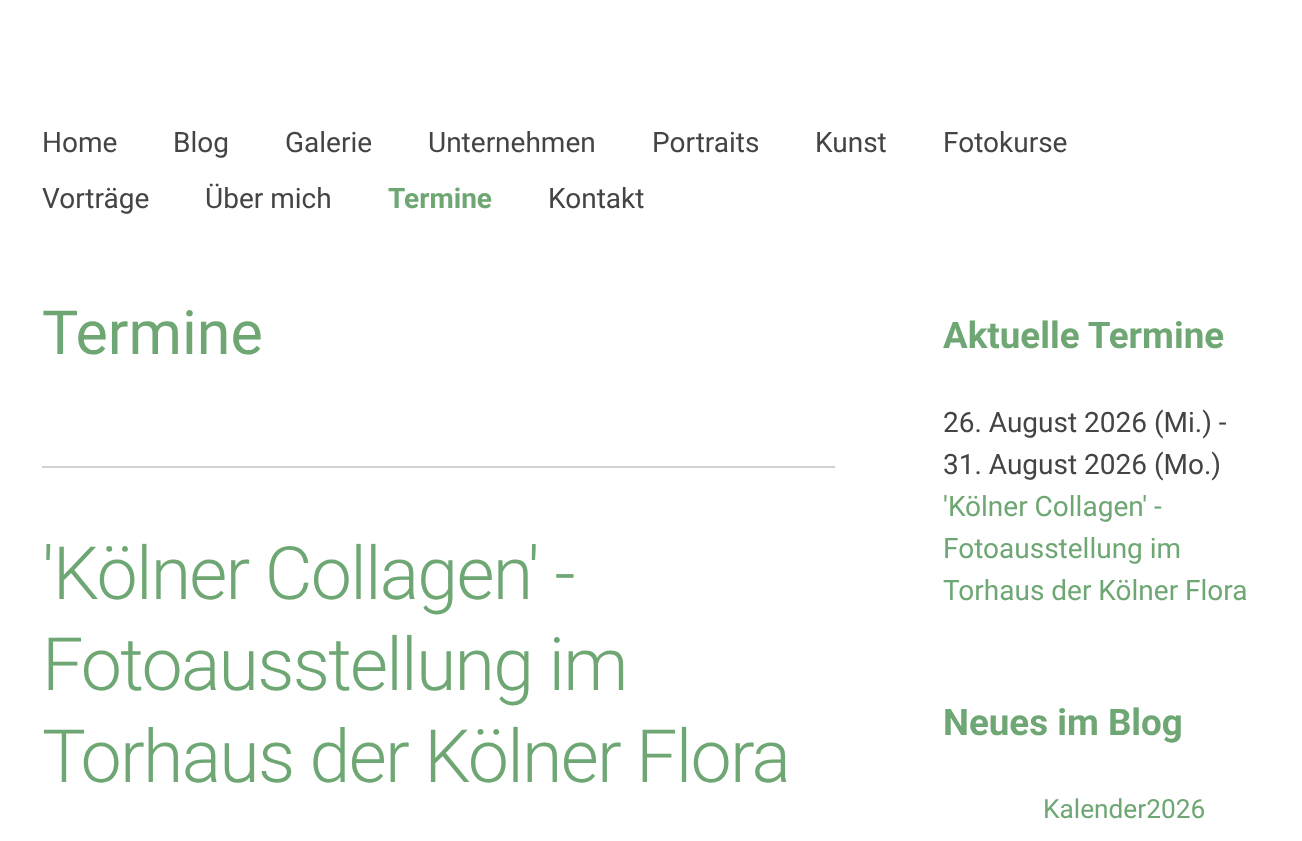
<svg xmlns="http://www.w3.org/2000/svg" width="1302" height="841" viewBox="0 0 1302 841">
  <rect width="100%" height="100%" fill="rgb(255,255,255)"/>
  <g font-family="Roboto" font-size="28" fill="rgb(68,68,68)">
    <text x="42" y="152">Home</text>
    <text x="173" y="152">Blog</text>
    <text x="285" y="152">Galerie</text>
    <text x="428" y="152">Unternehmen</text>
    <text x="652" y="152">Portraits</text>
    <text x="815" y="152">Kunst</text>
    <text x="943" y="152">Fotokurse</text>
    <text x="42" y="208">Vorträge</text>
    <text x="205" y="208">Über mich</text>
  </g>
  <text x="388" y="208" font-family="Roboto" font-size="28" font-weight="bold" fill="rgb(110,167,115)">Termine</text>
  <text x="548" y="208" font-family="Roboto" font-size="28" fill="rgb(68,68,68)">Kontakt</text>
  <text x="42" y="354" font-family="Roboto" font-size="61" fill="rgb(110,167,115)">Termine</text>
  <rect x="42" y="466" width="793" height="2" fill="rgb(209,209,209)"/>
  <g font-family="Roboto" font-size="73.5" font-weight="300" letter-spacing="-1.75" fill="rgb(110,167,115)">
    <text>
      <tspan x="42" y="599">'Kölner Collagen' -</tspan>
      <tspan x="42" y="690">Fotoausstellung im</tspan>
      <tspan x="42" y="782">Torhaus der Kölner Flora</tspan>
    </text>
  </g>
  <text x="943" y="348" font-family="Roboto" font-size="36.75" font-weight="bold" fill="rgb(110,167,115)">Aktuelle Termine</text>
  <g font-family="Roboto" font-size="28" fill="rgb(68,68,68)">
    <text>
      <tspan x="943" y="432">26. August 2026 (Mi.) -</tspan>
      <tspan x="943" y="474">31. August 2026 (Mo.)</tspan>
    </text>
  </g>
  <g font-family="Roboto" font-size="28" fill="rgb(110,167,115)">
    <text>
      <tspan x="943" y="516">'Kölner Collagen' -</tspan>
      <tspan x="943" y="558">Fotoausstellung im</tspan>
      <tspan x="943" y="600">Torhaus der Kölner Flora</tspan>
    </text>
  </g>
  <text x="943" y="735" font-family="Roboto" font-size="36.75" font-weight="bold" fill="rgb(110,167,115)">Neues im Blog</text>
  <text x="1043" y="818" font-family="Roboto" font-size="26.25" fill="rgb(110,167,115)">Kalender2026</text>
</svg>
